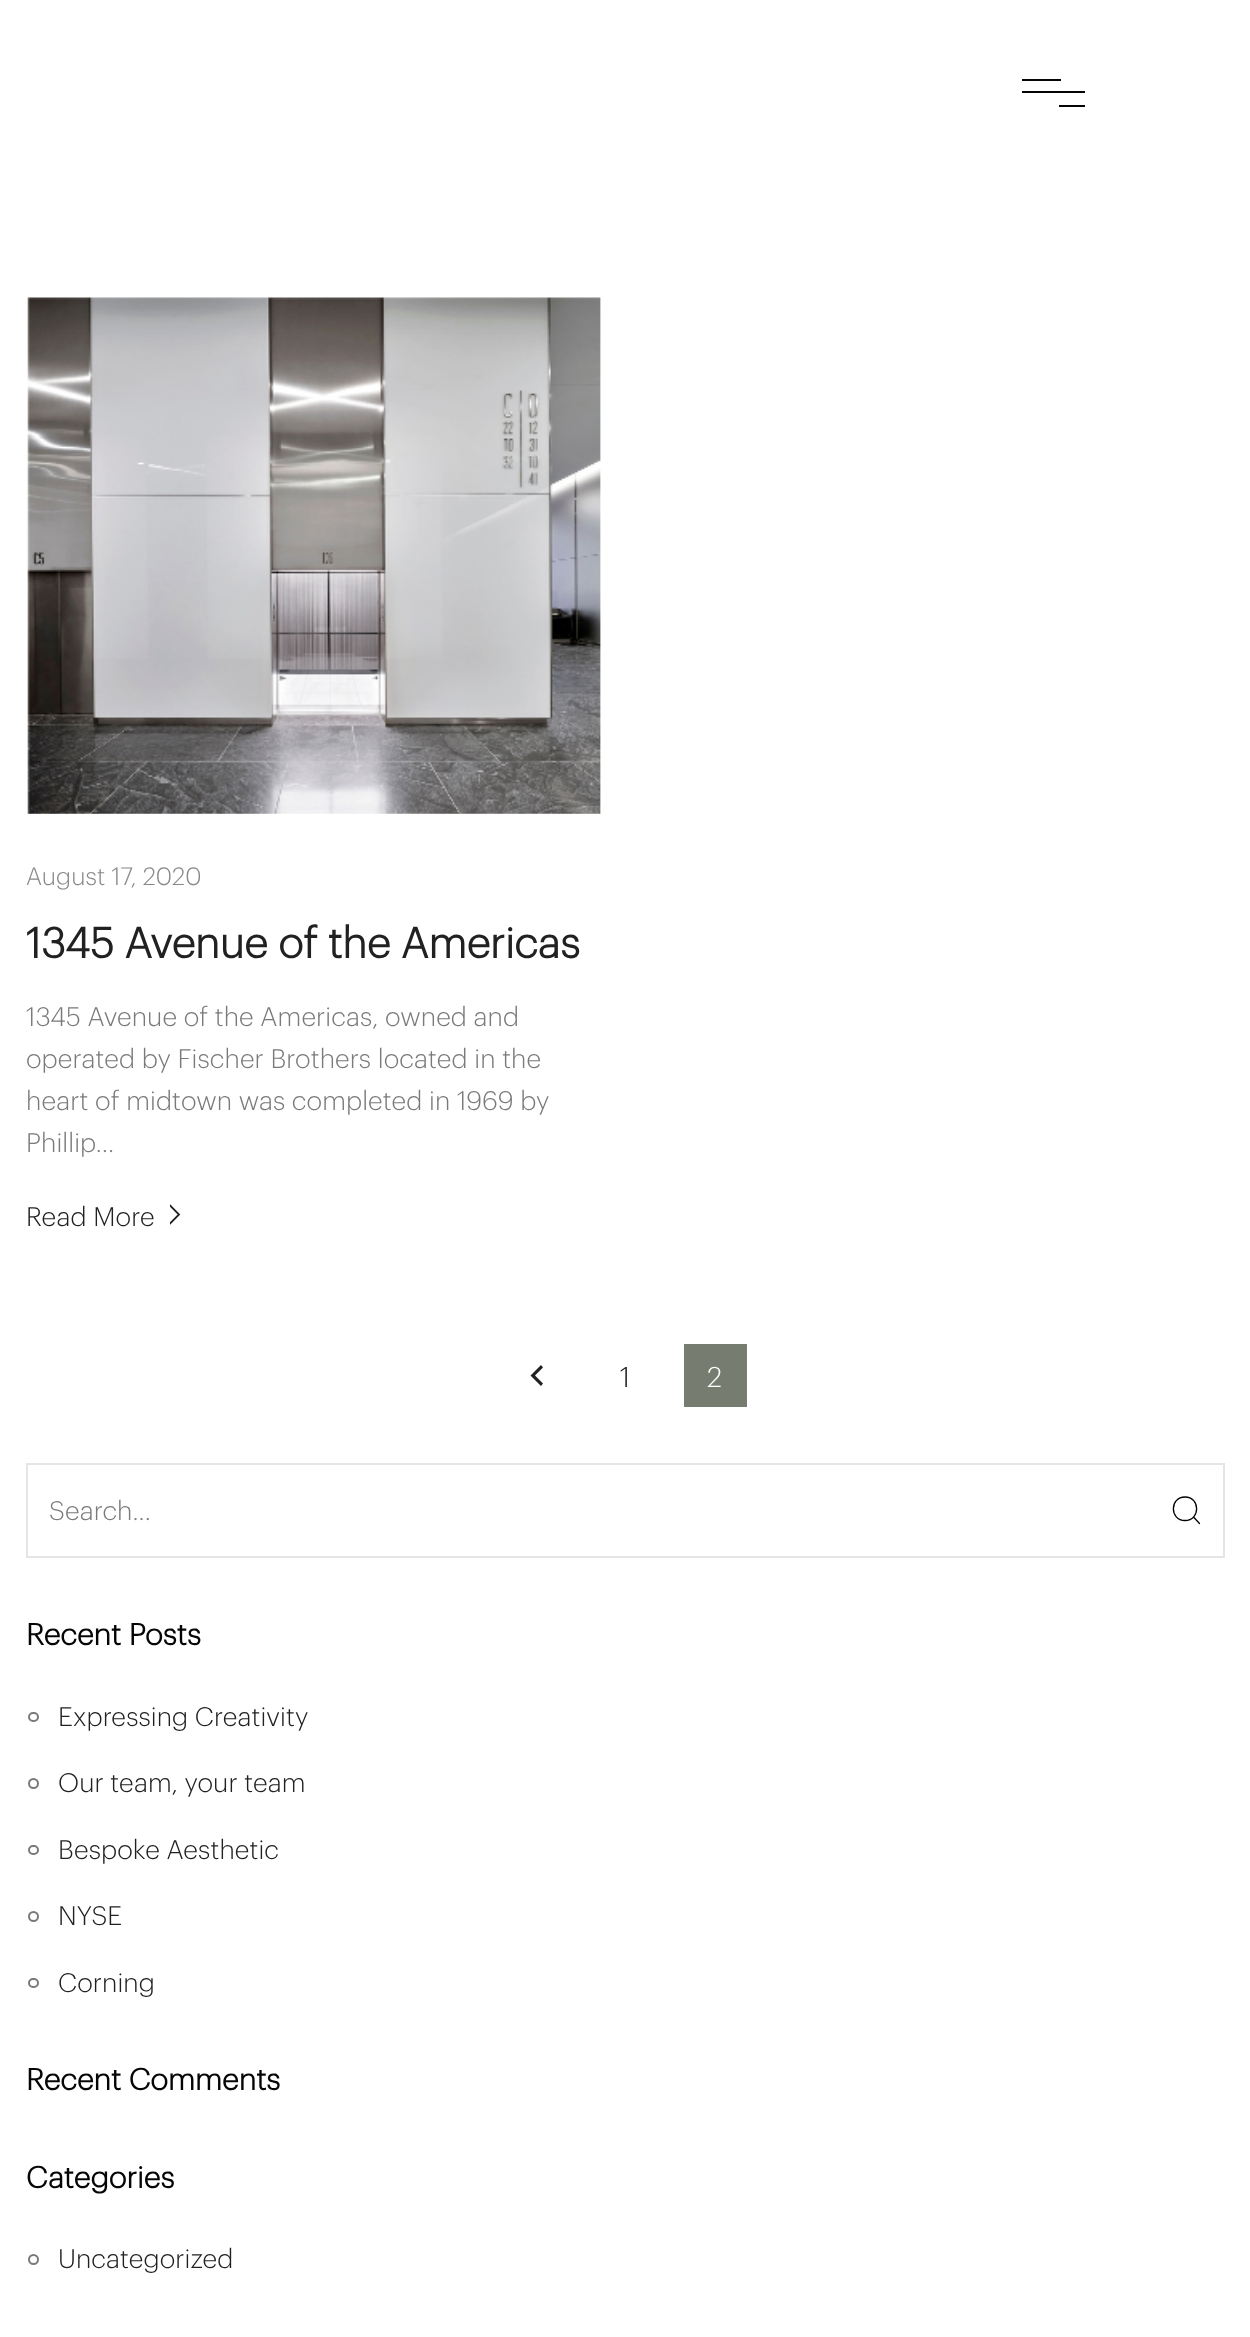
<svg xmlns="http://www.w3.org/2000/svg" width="1250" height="2337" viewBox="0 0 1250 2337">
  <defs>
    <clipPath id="clip1"><rect x="170" y="1204" width="38" height="21"/></clipPath>
  </defs>
  <rect width="100%" height="100%" fill="rgb(255,255,255)"/>
  <rect x="1022" y="79" width="39" height="2" fill="rgb(5,5,5)"/>
  <rect x="1022" y="91" width="63" height="2" fill="rgb(5,5,5)"/>
  <rect x="1059" y="105" width="26" height="2" fill="rgb(5,5,5)"/>
  <image x="27" y="297" width="574" height="517" href="pic1.png"/>
  <text x="26" y="885" font-family="Graphik" font-size="24.5" font-weight="300" fill="rgb(137,137,137)">August 17, 2020</text>
  <text x="26" y="958" font-family="Graphik" font-size="42" font-weight="bold" fill="rgb(33,33,33)">1345 Avenue of the Americas</text>
  <g font-family="Graphik" font-size="26.25" font-weight="300" fill="rgb(122,122,122)">
    <text>
      <tspan x="26" y="1026">1345 Avenue of the Americas, owned and</tspan>
      <tspan x="26" y="1068">operated by Fischer Brothers located in the</tspan>
      <tspan x="26" y="1110">heart of midtown was completed in 1969 by</tspan>
      <tspan x="26" y="1152">Phillip…</tspan>
    </text>
  </g>
  <text x="26" y="1226" font-family="Graphik" font-size="26.25" font-weight="300" fill="rgb(33,33,33)">Read More</text>
  <g clip-path="url(#clip1)">
    <path d="M169.5 1205L179 1214.5L169.5 1224" fill="none" stroke="rgb(33,33,33)" stroke-width="1.8"/>
  </g>
  <path d="M543 1383.5L541 1386L530.5 1375.5L541 1365L543 1367.5L535 1375.5Z" fill="rgb(33,33,33)"/>
  <text x="620" y="1387" font-family="Graphik" font-size="28" font-weight="300" fill="rgb(33,33,33)">1</text>
  <rect x="684" y="1344" width="63" height="63" fill="rgb(119,124,112)"/>
  <text x="707" y="1387" font-family="Graphik" font-size="28" font-weight="300" fill="rgb(255,255,255)">2</text>
  <rect x="27" y="1464" width="1197" height="93" fill="none" stroke="rgb(229,229,229)" stroke-width="2"/>
  <text x="49" y="1520" font-family="Graphik" font-size="26.25" font-weight="300" fill="rgb(122,122,122)">Search...</text>
  <path d="M1185 1520.5C1200.5 1520.5 1200.5 1497 1185 1497C1169.5 1497 1169.5 1520.5 1185 1520.5ZM1199.5 1523.5L1193.5 1517" fill="none" stroke="rgb(0,0,0)" stroke-width="1.3" stroke-linecap="round" stroke-linejoin="round"/>
  <text x="26" y="1645" font-family="Graphik" font-size="29.75" font-weight="bold" fill="rgb(5,5,5)">Recent Posts</text>
  <rect x="29" y="1713" width="9" height="8" rx="4" fill="none" stroke="rgb(122,122,122)" stroke-width="2"/>
  <text x="58" y="1726" font-family="Graphik" font-size="26.25" font-weight="300" fill="rgb(33,33,33)">Expressing Creativity</text>
  <circle cx="33.5" cy="1783.5" r="4.5" fill="none" stroke="rgb(122,122,122)" stroke-width="2"/>
  <text x="58" y="1792" font-family="Graphik" font-size="26.25" font-weight="300" fill="rgb(33,33,33)">Our team, your team</text>
  <rect x="29" y="1846" width="9" height="8" rx="4" fill="none" stroke="rgb(122,122,122)" stroke-width="2"/>
  <text x="58" y="1859" font-family="Graphik" font-size="26.25" font-weight="300" fill="rgb(33,33,33)">Bespoke Aesthetic</text>
  <circle cx="33.5" cy="1916.5" r="4.5" fill="none" stroke="rgb(122,122,122)" stroke-width="2"/>
  <text x="58" y="1925" font-family="Graphik" font-size="26.25" font-weight="300" fill="rgb(33,33,33)">NYSE</text>
  <rect x="29" y="1979" width="9" height="8" rx="4" fill="none" stroke="rgb(122,122,122)" stroke-width="2"/>
  <text x="58" y="1992" font-family="Graphik" font-size="26.25" font-weight="300" fill="rgb(33,33,33)">Corning</text>
  <g font-family="Graphik" font-size="29.75" font-weight="bold" fill="rgb(5,5,5)">
    <text x="26" y="2090">Recent Comments</text>
    <text x="26" y="2188">Categories</text>
  </g>
  <circle cx="33.5" cy="2259.5" r="4.5" fill="none" stroke="rgb(122,122,122)" stroke-width="2"/>
  <text x="58" y="2268" font-family="Graphik" font-size="26.25" font-weight="300" fill="rgb(33,33,33)">Uncategorized</text>
</svg>
